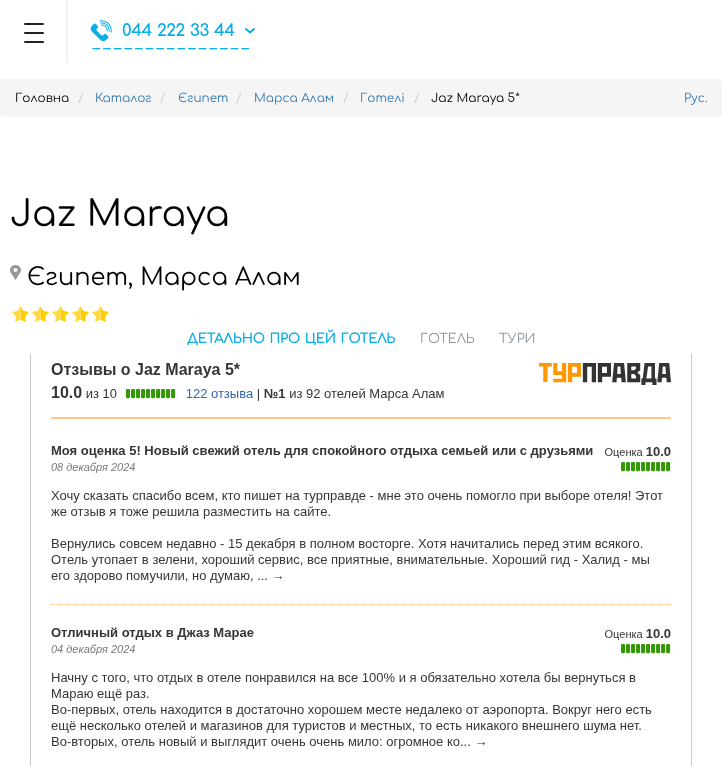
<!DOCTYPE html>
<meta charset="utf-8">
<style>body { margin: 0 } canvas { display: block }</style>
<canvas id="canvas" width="722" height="766"></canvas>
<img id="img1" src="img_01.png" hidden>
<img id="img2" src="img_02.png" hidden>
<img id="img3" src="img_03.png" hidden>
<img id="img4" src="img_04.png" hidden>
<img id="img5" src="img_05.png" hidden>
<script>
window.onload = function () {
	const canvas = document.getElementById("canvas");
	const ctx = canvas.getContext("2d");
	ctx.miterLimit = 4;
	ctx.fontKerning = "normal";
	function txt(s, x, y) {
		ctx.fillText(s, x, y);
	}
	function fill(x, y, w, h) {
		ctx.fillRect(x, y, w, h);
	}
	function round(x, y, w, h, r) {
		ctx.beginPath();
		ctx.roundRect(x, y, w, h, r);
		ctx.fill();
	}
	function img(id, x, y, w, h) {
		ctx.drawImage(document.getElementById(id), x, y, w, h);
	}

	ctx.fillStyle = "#FFFFFF";
	fill(0, 0, 722, 766);
	ctx.fillStyle = "#1F2123";
	round(24, 23, 20, 2, 1);
	ctx.fillStyle = "#EFEFEF";
	fill(66, 0, 2, 63);
	ctx.fillStyle = "#1F2123";
	round(24, 32, 20, 2, 1);
	round(24, 41, 20, 2, 1);
	img("img1", 90, 20, 22, 22);
	ctx.beginPath();
	ctx.moveTo(246, 29);
	ctx.lineTo(250, 32.5);
	ctx.lineTo(254, 29);
	ctx.strokeStyle = "#08AEEA";
	ctx.lineWidth = 2;
	ctx.lineCap = "round";
	ctx.stroke();
	img("img2", 92, 48, 158, 2);
	ctx.fillStyle = "#F5F5F5";
	round(0, 79, 722, 38, 4);
	img("img3", 10, 265, 11, 15);
	img("img4", 12, 306, 17, 16);
	img("img4", 32, 306, 17, 16);
	img("img4", 52, 306, 17, 16);
	img("img4", 72, 306, 17, 16);
	img("img4", 92, 306, 17, 16);
	img("img5", 30, 354, 662, 412);
	ctx.wordSpacing = "0.5px";
	ctx.font = "bold 16px Comfortaa";
	ctx.fillStyle = "#08AEEA";
	txt("044 222 33 44", 122, 36);
	ctx.wordSpacing = "0px";
	ctx.font = "12px Comfortaa";
	ctx.fillStyle = "#000000";
	txt("Головна", 15, 102);
	ctx.fillStyle = "#CCCCCC";
	txt("/", 78, 102);
	ctx.fillStyle = "#337AB7";
	txt("Каталог", 95, 102);
	ctx.fillStyle = "#CCCCCC";
	txt("/", 160, 102);
	ctx.fillStyle = "#337AB7";
	txt("Єгипет", 178, 102);
	ctx.fillStyle = "#CCCCCC";
	txt("/", 236, 102);
	ctx.fillStyle = "#337AB7";
	txt("Марса Алам", 254, 102);
	ctx.fillStyle = "#CCCCCC";
	txt("/", 343, 102);
	ctx.fillStyle = "#337AB7";
	txt("Готелі", 360, 102);
	ctx.fillStyle = "#CCCCCC";
	txt("/", 414, 102);
	ctx.fillStyle = "#000000";
	txt("Jaz Maraya 5*", 431, 102);
	ctx.fillStyle = "#337AB7";
	txt("Рус.", 684, 102);
	ctx.font = "36px Comfortaa";
	ctx.fillStyle = "#000000";
	txt("Jaz Maraya", 10, 226);
	ctx.font = "24px Comfortaa";
	txt("Єгипет, Марса Алам", 27, 285);
	ctx.wordSpacing = "1px";
	ctx.font = "bold 13px Comfortaa";
	ctx.fillStyle = "#08AEEA";
	txt("ДЕТАЛЬНО ПРО ЦЕЙ ГОТЕЛЬ", 187, 343);
	ctx.wordSpacing = "0px";
	ctx.font = "13px Comfortaa";
	ctx.fillStyle = "#8F959A";
	txt("ГОТЕЛЬ", 420, 343);
	txt("ТУРИ", 499, 343);
};
</script>
